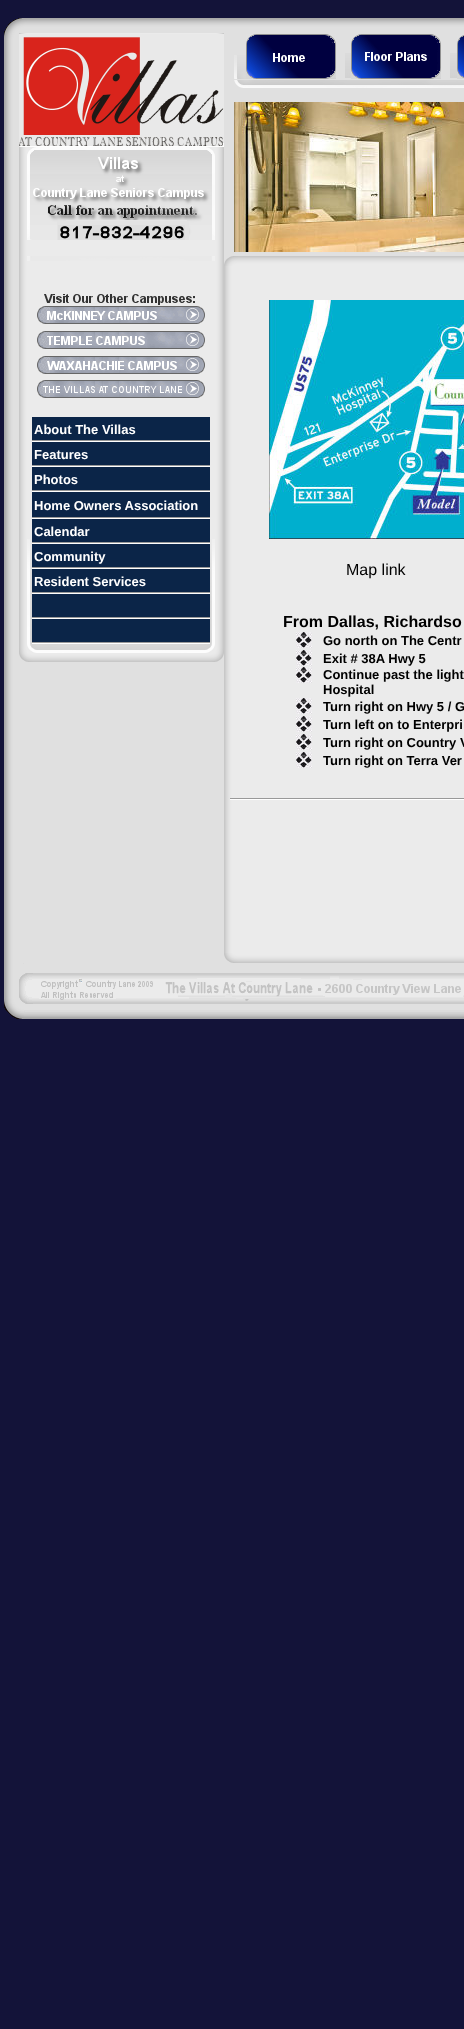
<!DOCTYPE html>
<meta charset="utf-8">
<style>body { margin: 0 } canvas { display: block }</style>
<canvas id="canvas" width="464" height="2029"></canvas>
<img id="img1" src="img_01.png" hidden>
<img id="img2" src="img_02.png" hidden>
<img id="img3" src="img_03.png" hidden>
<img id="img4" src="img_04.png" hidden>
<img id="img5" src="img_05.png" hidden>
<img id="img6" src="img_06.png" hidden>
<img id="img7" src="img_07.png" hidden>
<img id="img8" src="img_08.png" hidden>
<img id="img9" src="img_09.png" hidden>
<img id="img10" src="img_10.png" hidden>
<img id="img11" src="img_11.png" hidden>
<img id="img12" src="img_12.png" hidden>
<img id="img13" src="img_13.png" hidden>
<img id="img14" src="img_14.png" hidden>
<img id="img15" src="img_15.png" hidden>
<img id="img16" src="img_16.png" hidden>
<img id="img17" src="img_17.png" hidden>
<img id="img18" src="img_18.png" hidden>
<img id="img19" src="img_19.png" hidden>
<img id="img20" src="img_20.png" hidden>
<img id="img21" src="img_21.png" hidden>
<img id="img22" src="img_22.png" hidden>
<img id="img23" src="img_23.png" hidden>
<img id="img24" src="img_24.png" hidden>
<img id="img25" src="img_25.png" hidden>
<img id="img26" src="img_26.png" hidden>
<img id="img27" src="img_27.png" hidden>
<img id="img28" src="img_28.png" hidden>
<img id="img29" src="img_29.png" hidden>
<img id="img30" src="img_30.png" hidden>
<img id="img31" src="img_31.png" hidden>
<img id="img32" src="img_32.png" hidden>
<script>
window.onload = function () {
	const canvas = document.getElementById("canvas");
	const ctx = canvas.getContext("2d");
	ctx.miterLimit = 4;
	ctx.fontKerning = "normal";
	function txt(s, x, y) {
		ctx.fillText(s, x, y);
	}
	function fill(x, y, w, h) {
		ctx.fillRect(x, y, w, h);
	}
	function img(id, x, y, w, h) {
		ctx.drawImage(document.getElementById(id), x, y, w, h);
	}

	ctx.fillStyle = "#131339";
	fill(0, 0, 464, 2029);
	img("img1", 4, 18, 460, 238);
	img("img2", 19, 33, 205, 223);
	img("img3", 19, 34, 205, 113);
	img("img4", 27, 147, 188, 93);
	img("img5", 234, 55, 12, 24);
	img("img6", 246, 34, 90, 45);
	img("img7", 345, 53, 6, 25);
	img("img8", 351, 34, 90, 45);
	img("img9", 450, 53, 7, 25);
	img("img10", 457, 35, 7, 44);
	img("img11", 234, 80, 230, 8);
	img("img12", 234, 102, 230, 150);
	img("img13", 4, 256, 220, 707);
	img("img14", 224, 256, 240, 10);
	img("img15", 19, 256, 205, 283);
	img("img16", 27, 256, 188, 5);
	img("img17", 44, 294, 151, 11);
	img("img18", 37, 306, 168, 18);
	img("img19", 37, 331, 168, 18);
	img("img20", 37, 356, 168, 18);
	img("img21", 37, 380, 168, 18);
	img("img22", 19, 539, 205, 123);
	ctx.fillStyle = "#0B2548";
	fill(32, 417, 178, 23);
	img("img23", 32, 440, 178, 2);
	fill(32, 442, 178, 23);
	img("img23", 32, 465, 178, 2);
	fill(32, 467, 178, 23);
	img("img23", 32, 490, 178, 2);
	fill(32, 492, 178, 25);
	img("img23", 32, 517, 178, 2);
	fill(32, 519, 178, 23);
	img("img23", 32, 542, 178, 2);
	fill(32, 544, 178, 23);
	img("img23", 32, 567, 178, 2);
	fill(32, 569, 178, 23);
	img("img23", 32, 592, 178, 2);
	fill(32, 594, 178, 23);
	img("img23", 32, 617, 178, 2);
	fill(32, 619, 178, 23);
	img("img23", 32, 642, 178, 2);
	img("img24", 224, 266, 240, 521);
	img("img25", 269, 300, 195, 239);
	img("img26", 296, 632, 16, 16);
	img("img26", 296, 650, 16, 16);
	img("img26", 296, 667, 16, 16);
	img("img26", 296, 698, 16, 16);
	img("img26", 296, 716, 16, 16);
	img("img26", 296, 734, 16, 16);
	img("img26", 296, 752, 16, 16);
	img("img27", 224, 787, 240, 23);
	img("img28", 230, 798, 234, 2);
	img("img29", 224, 810, 240, 143);
	img("img30", 224, 953, 240, 10);
	img("img31", 4, 963, 20, 56);
	img("img32", 24, 963, 440, 56);
	ctx.font = "bold 13px Liberation Sans";
	ctx.fillStyle = "#FFFFFF";
	txt("About The Villas", 34, 434);
	txt("Features", 34, 459);
	txt("Photos", 34, 484);
	txt("Home Owners Association", 34, 510);
	txt("Calendar", 34, 536);
	txt("Community", 34, 561);
	txt("Resident Services", 34, 586);
	ctx.font = "16px Liberation Sans";
	ctx.fillStyle = "#000000";
	txt("Map link", 346, 575);
	ctx.font = "bold 16px Liberation Sans";
	txt("From Dallas, Richardso", 283, 627);
	ctx.font = "bold 13px Liberation Sans";
	txt("Go north on The Centr", 323, 645);
	txt("Exit # 38A Hwy 5", 323, 663);
	txt("Continue past the light", 323, 679);
	txt("Hospital", 323, 694);
	txt("Turn right on Hwy 5 / G", 323, 711);
	txt("Turn left on to Enterpri", 323, 729);
	txt("Turn right on Country V", 323, 747);
	txt("Turn right on Terra Ver", 323, 765);
};
</script>
